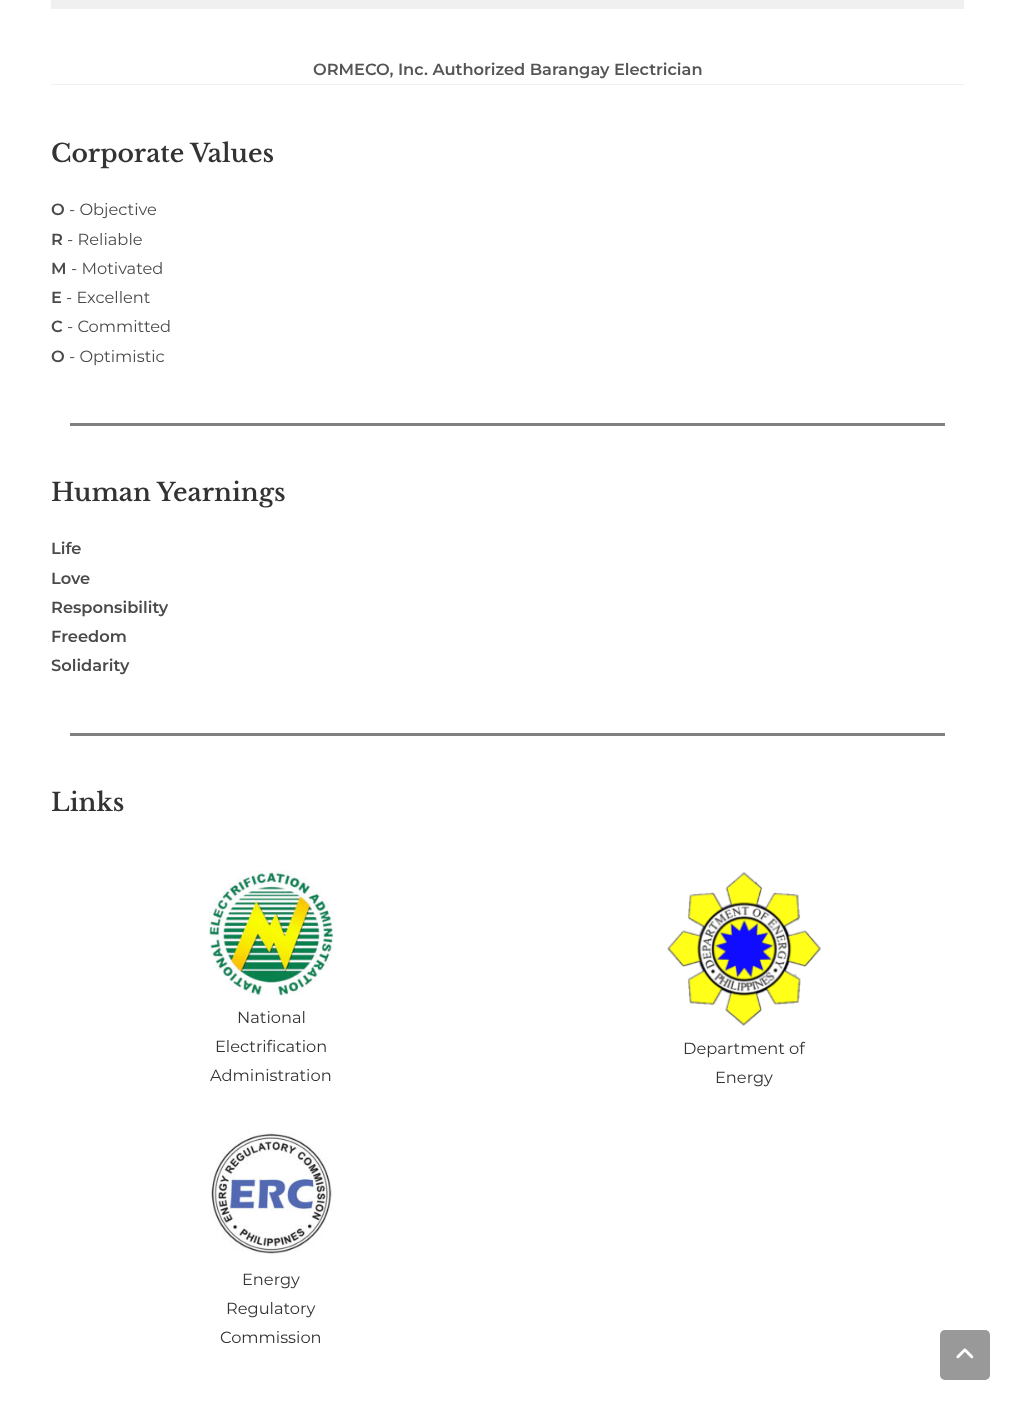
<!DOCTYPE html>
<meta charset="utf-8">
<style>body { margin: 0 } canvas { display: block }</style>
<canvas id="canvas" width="1015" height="1405"></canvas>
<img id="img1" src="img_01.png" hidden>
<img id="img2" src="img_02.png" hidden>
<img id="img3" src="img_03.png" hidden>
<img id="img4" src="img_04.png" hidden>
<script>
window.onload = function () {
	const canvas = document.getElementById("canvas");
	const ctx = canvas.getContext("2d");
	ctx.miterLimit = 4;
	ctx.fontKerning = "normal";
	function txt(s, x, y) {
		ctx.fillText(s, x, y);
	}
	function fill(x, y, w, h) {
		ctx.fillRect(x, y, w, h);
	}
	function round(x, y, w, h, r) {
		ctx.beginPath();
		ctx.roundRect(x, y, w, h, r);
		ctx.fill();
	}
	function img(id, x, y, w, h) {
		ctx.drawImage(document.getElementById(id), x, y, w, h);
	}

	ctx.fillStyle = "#FFFFFF";
	fill(0, 0, 1015, 1405);
	ctx.fillStyle = "#F0F0F0";
	fill(51, 84, 913, 1);
	fill(51, 0, 913, 9);
	ctx.fillStyle = "#808080";
	fill(70, 423, 875, 3);
	fill(70, 733, 875, 3);
	img("img1", 208, 870, 126, 126);
	img("img2", 210, 1132, 123, 123);
	img("img3", 667, 872, 154, 154);
	ctx.fillStyle = "#999999";
	round(940, 1330, 50, 50, 5);
	img("img4", 956, 1348, 18, 11);
	ctx.font = "600 16.25px Montserrat";
	ctx.fillStyle = "#555555";
	txt("ORMECO, Inc. Authorized Barangay Electrician", 313, 75);
	ctx.font = "600 25px Libre Baskerville";
	ctx.fillStyle = "#333333";
	txt("Corporate Values", 51, 162);
	ctx.font = "600 16.25px Montserrat";
	ctx.fillStyle = "#4A4A4A";
	txt("O", 51, 215);
	ctx.font = "16.25px Montserrat";
	txt("- Objective", 69, 215);
	ctx.font = "600 16.25px Montserrat";
	txt("R", 51, 245);
	ctx.font = "16.25px Montserrat";
	txt("- Reliable", 67, 245);
	ctx.font = "600 16.25px Montserrat";
	txt("M", 51, 274);
	ctx.font = "16.25px Montserrat";
	txt("- Motivated", 71, 274);
	ctx.font = "600 16.25px Montserrat";
	txt("E", 51, 303);
	ctx.font = "16.25px Montserrat";
	txt("- Excellent", 66, 303);
	ctx.font = "600 16.25px Montserrat";
	txt("C", 51, 332);
	ctx.font = "16.25px Montserrat";
	txt("- Committed", 67, 332);
	ctx.font = "600 16.25px Montserrat";
	txt("O", 51, 362);
	ctx.font = "16.25px Montserrat";
	txt("- Optimistic", 69, 362);
	ctx.font = "600 25px Libre Baskerville";
	ctx.fillStyle = "#333333";
	txt("Human Yearnings", 51, 501);
	ctx.font = "600 16.25px Montserrat";
	ctx.fillStyle = "#4A4A4A";
	txt("Life", 51, 554);
	txt("Love", 51, 584);
	txt("Responsibility", 51, 613);
	txt("Freedom", 51, 642);
	txt("Solidarity", 51, 671);
	ctx.font = "600 25px Libre Baskerville";
	ctx.fillStyle = "#333333";
	txt("Links", 51, 811);
	ctx.font = "16.25px Montserrat";
	txt("National", 237, 1023);
	txt("Electrification", 215, 1052);
	txt("Administration", 210, 1081);
	txt("Energy", 242, 1285);
	txt("Regulatory", 226, 1314);
	txt("Commission", 220, 1343);
	txt("Department of", 683, 1054);
	txt("Energy", 715, 1083);
};
</script>
